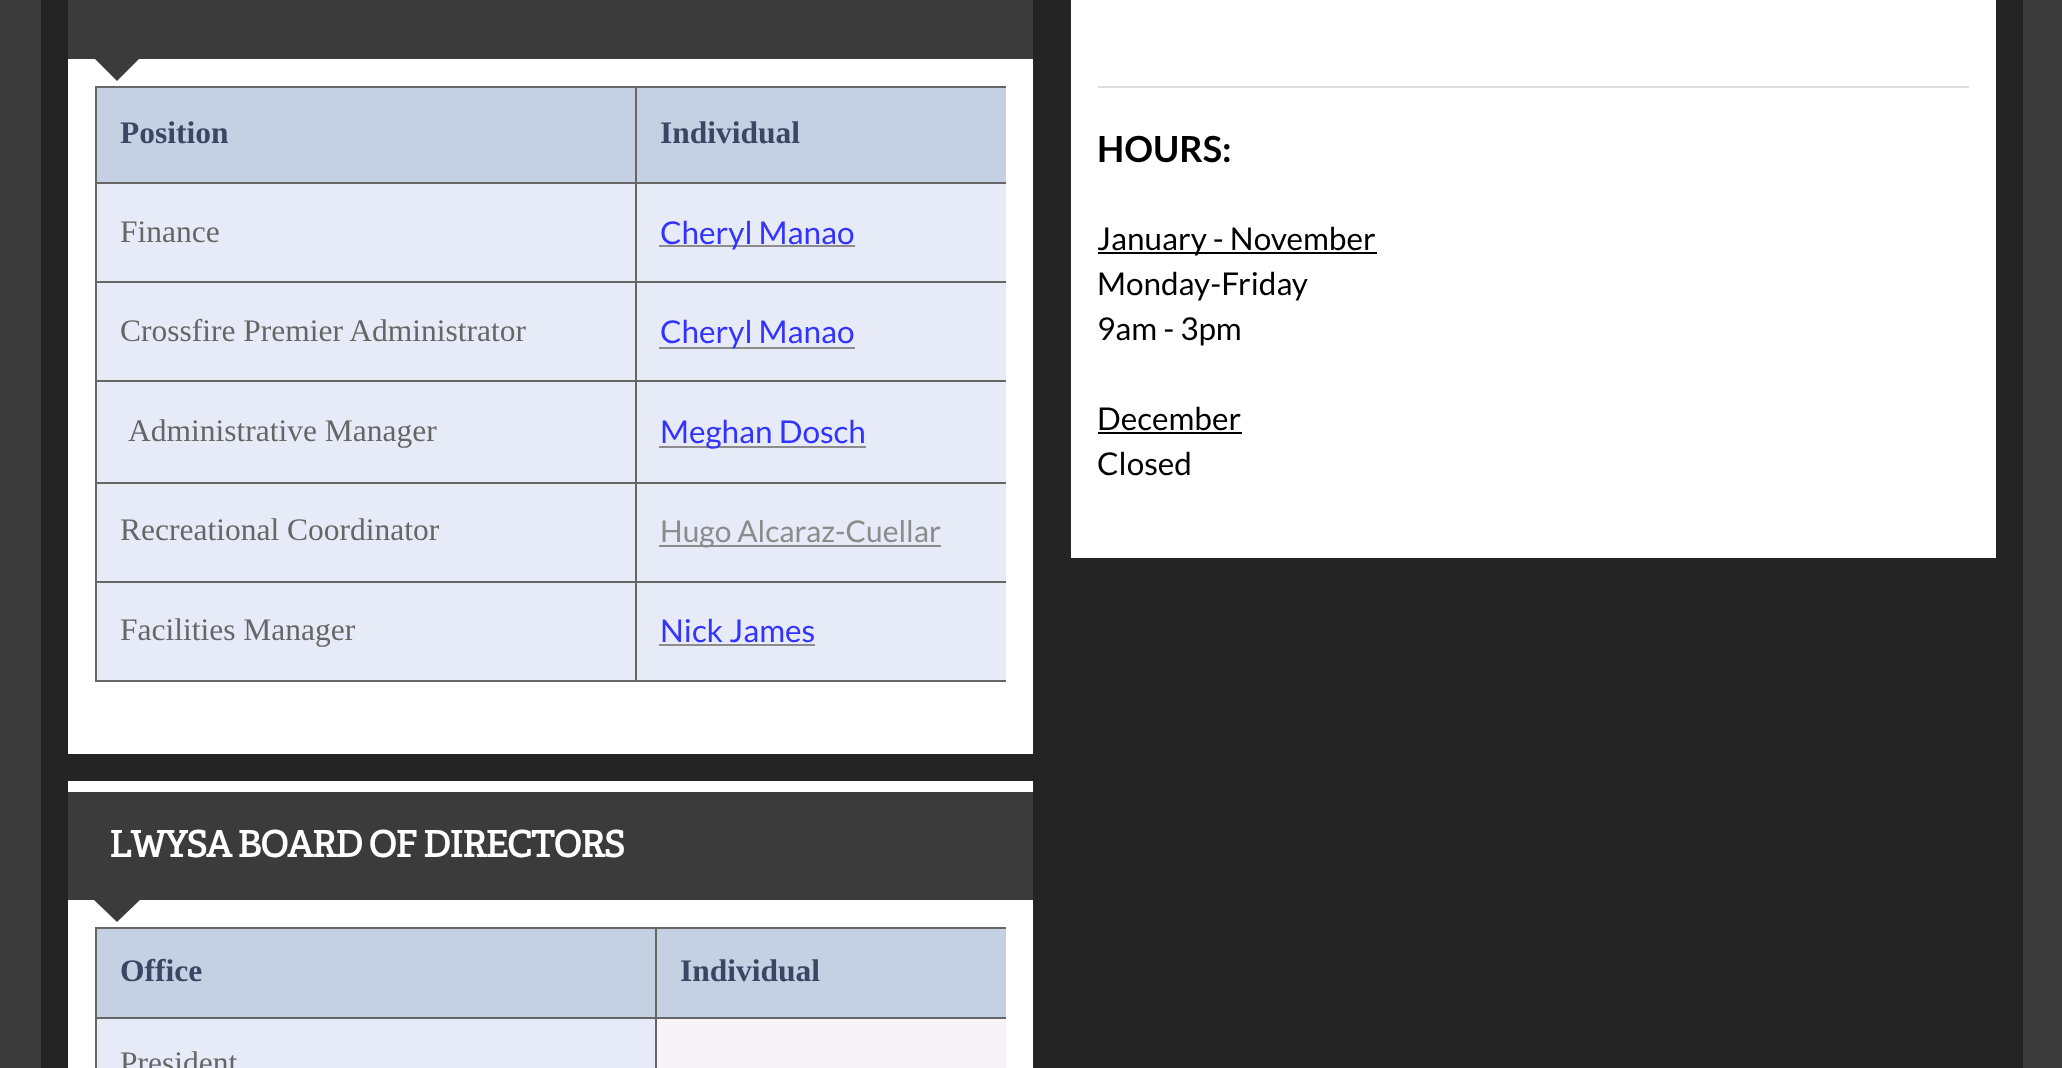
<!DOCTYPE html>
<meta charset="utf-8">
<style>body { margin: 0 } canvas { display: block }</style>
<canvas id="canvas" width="2062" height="1068"></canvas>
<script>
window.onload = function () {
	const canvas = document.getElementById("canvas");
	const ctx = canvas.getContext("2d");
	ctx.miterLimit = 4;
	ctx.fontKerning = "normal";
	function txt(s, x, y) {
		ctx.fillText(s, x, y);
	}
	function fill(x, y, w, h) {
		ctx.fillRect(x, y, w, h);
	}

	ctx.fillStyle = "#3B3B3B";
	fill(0, 0, 2062, 1068);
	ctx.fillStyle = "#242424";
	fill(41, 0, 1982, 1068);
	ctx.fillStyle = "#3B3B3B";
	fill(68, 0, 965, 59);
	ctx.fillStyle = "#FFFFFF";
	fill(68, 59, 965, 695);
	ctx.fillStyle = "#3B3B3B";
	ctx.beginPath();
	ctx.moveTo(94, 58);
	ctx.lineTo(140, 58);
	ctx.lineTo(117, 81);
	ctx.closePath();
	ctx.fill();
	ctx.fillStyle = "#666666";
	fill(95, 86, 911, 2);
	fill(95, 680, 911, 2);
	fill(95, 86, 2, 596);
	ctx.fillStyle = "#C4D1E3";
	fill(97, 88, 909, 94);
	ctx.fillStyle = "#666666";
	fill(635, 182, 371, 2);
	ctx.fillStyle = "#E7EBF7";
	fill(97, 184, 538, 298);
	fill(637, 184, 369, 298);
	ctx.fillStyle = "#666666";
	fill(635, 281, 371, 2);
	fill(635, 380, 371, 2);
	fill(635, 482, 371, 2);
	fill(635, 581, 371, 2);
	fill(635, 581, 2, 101);
	fill(95, 581, 542, 2);
	fill(635, 482, 2, 101);
	fill(95, 482, 542, 2);
	fill(635, 380, 2, 104);
	fill(95, 380, 542, 2);
	fill(635, 281, 2, 102);
	fill(95, 281, 542, 2);
	fill(635, 182, 2, 102);
	fill(95, 182, 542, 2);
	fill(635, 86, 2, 99);
	ctx.fillStyle = "#8C8C8C";
	fill(659, 245, 196, 2);
	fill(659, 347, 196, 2);
	fill(659, 446, 207, 2);
	ctx.fillStyle = "#E7EBF7";
	fill(97, 484, 538, 97);
	fill(637, 484, 369, 97);
	ctx.fillStyle = "#8C8C8C";
	fill(659, 545, 282, 2);
	ctx.fillStyle = "#E7EBF7";
	fill(97, 583, 538, 97);
	fill(637, 583, 369, 97);
	ctx.fillStyle = "#8C8C8C";
	fill(659, 644, 156, 2);
	ctx.fillStyle = "#3B3B3B";
	fill(68, 792, 965, 108);
	ctx.fillStyle = "#FFFFFF";
	fill(68, 781, 965, 11);
	fill(68, 900, 965, 168);
	ctx.fillStyle = "#3B3B3B";
	ctx.beginPath();
	ctx.moveTo(94, 900);
	ctx.lineTo(140, 900);
	ctx.lineTo(117, 922);
	ctx.closePath();
	ctx.fill();
	ctx.fillStyle = "#666666";
	fill(95, 927, 911, 2);
	fill(95, 927, 2, 141);
	ctx.fillStyle = "#C4D1E3";
	fill(97, 929, 909, 88);
	ctx.fillStyle = "#666666";
	fill(655, 1017, 351, 2);
	fill(655, 1017, 2, 51);
	fill(95, 1017, 562, 2);
	fill(655, 927, 2, 92);
	ctx.fillStyle = "#E7EBF7";
	fill(97, 1019, 558, 49);
	ctx.fillStyle = "#F7F3F7";
	fill(657, 1019, 349, 49);
	ctx.fillStyle = "#FFFFFF";
	fill(1071, 0, 925, 558);
	ctx.fillStyle = "#DDDDDD";
	fill(1098, 86, 871, 2);
	ctx.fillStyle = "#000000";
	fill(1098, 252, 279, 2);
	fill(1098, 432, 144, 2);
	ctx.font = "bold 31.5px Liberation Serif";
	ctx.fillStyle = "#3A4663";
	txt("Position", 120, 143);
	txt("Individual", 660, 143);
	ctx.font = "31.5px Liberation Serif";
	ctx.fillStyle = "#666666";
	txt("Finance", 120, 242);
	ctx.font = "31.5px Lato";
	ctx.fillStyle = "#3333FF";
	txt("Cheryl Manao", 660, 244);
	ctx.font = "31.5px Liberation Serif";
	ctx.fillStyle = "#666666";
	txt("Crossfire Premier Administrator", 120, 341);
	ctx.font = "31.5px Lato";
	ctx.fillStyle = "#3333FF";
	txt("Cheryl Manao", 660, 343);
	ctx.font = "31.5px Liberation Serif";
	ctx.fillStyle = "#666666";
	txt("Administrative Manager", 128, 441);
	ctx.font = "31.5px Lato";
	ctx.fillStyle = "#3333FF";
	txt("Meghan Dosch", 660, 443);
	ctx.font = "31.5px Liberation Serif";
	ctx.fillStyle = "#666666";
	txt("Recreational Coordinator", 120, 540);
	ctx.font = "30px Lato";
	ctx.fillStyle = "#8C8C8C";
	txt("Hugo Alcaraz-Cuellar", 660, 542);
	ctx.font = "31.5px Liberation Serif";
	ctx.fillStyle = "#666666";
	txt("Facilities Manager", 120, 640);
	ctx.font = "31.5px Lato";
	ctx.fillStyle = "#3333FF";
	txt("Nick James", 660, 642);
	ctx.letterSpacing = "-1.1px";
	ctx.font = "bold 36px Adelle";
	ctx.fillStyle = "#FFFFFF";
	txt("LWYSA BOARD OF DIRECTORS", 109, 857);
	ctx.letterSpacing = "0px";
	ctx.font = "bold 31.5px Liberation Serif";
	ctx.fillStyle = "#3A4663";
	txt("Office", 120, 981);
	txt("Individual", 680, 981);
	ctx.font = "31.5px Liberation Serif";
	ctx.fillStyle = "#666666";
	txt("President", 120, 1073);
	ctx.font = "bold 36px Lato";
	ctx.fillStyle = "#000000";
	txt("HOURS:", 1097, 162);
	ctx.font = "31.5px Lato";
	txt("January - November", 1097, 250);
	txt("Monday-Friday", 1097, 295);
	txt("9am - 3pm", 1097, 340);
	txt("December", 1097, 430);
	txt("Closed", 1097, 475);
};
</script>
